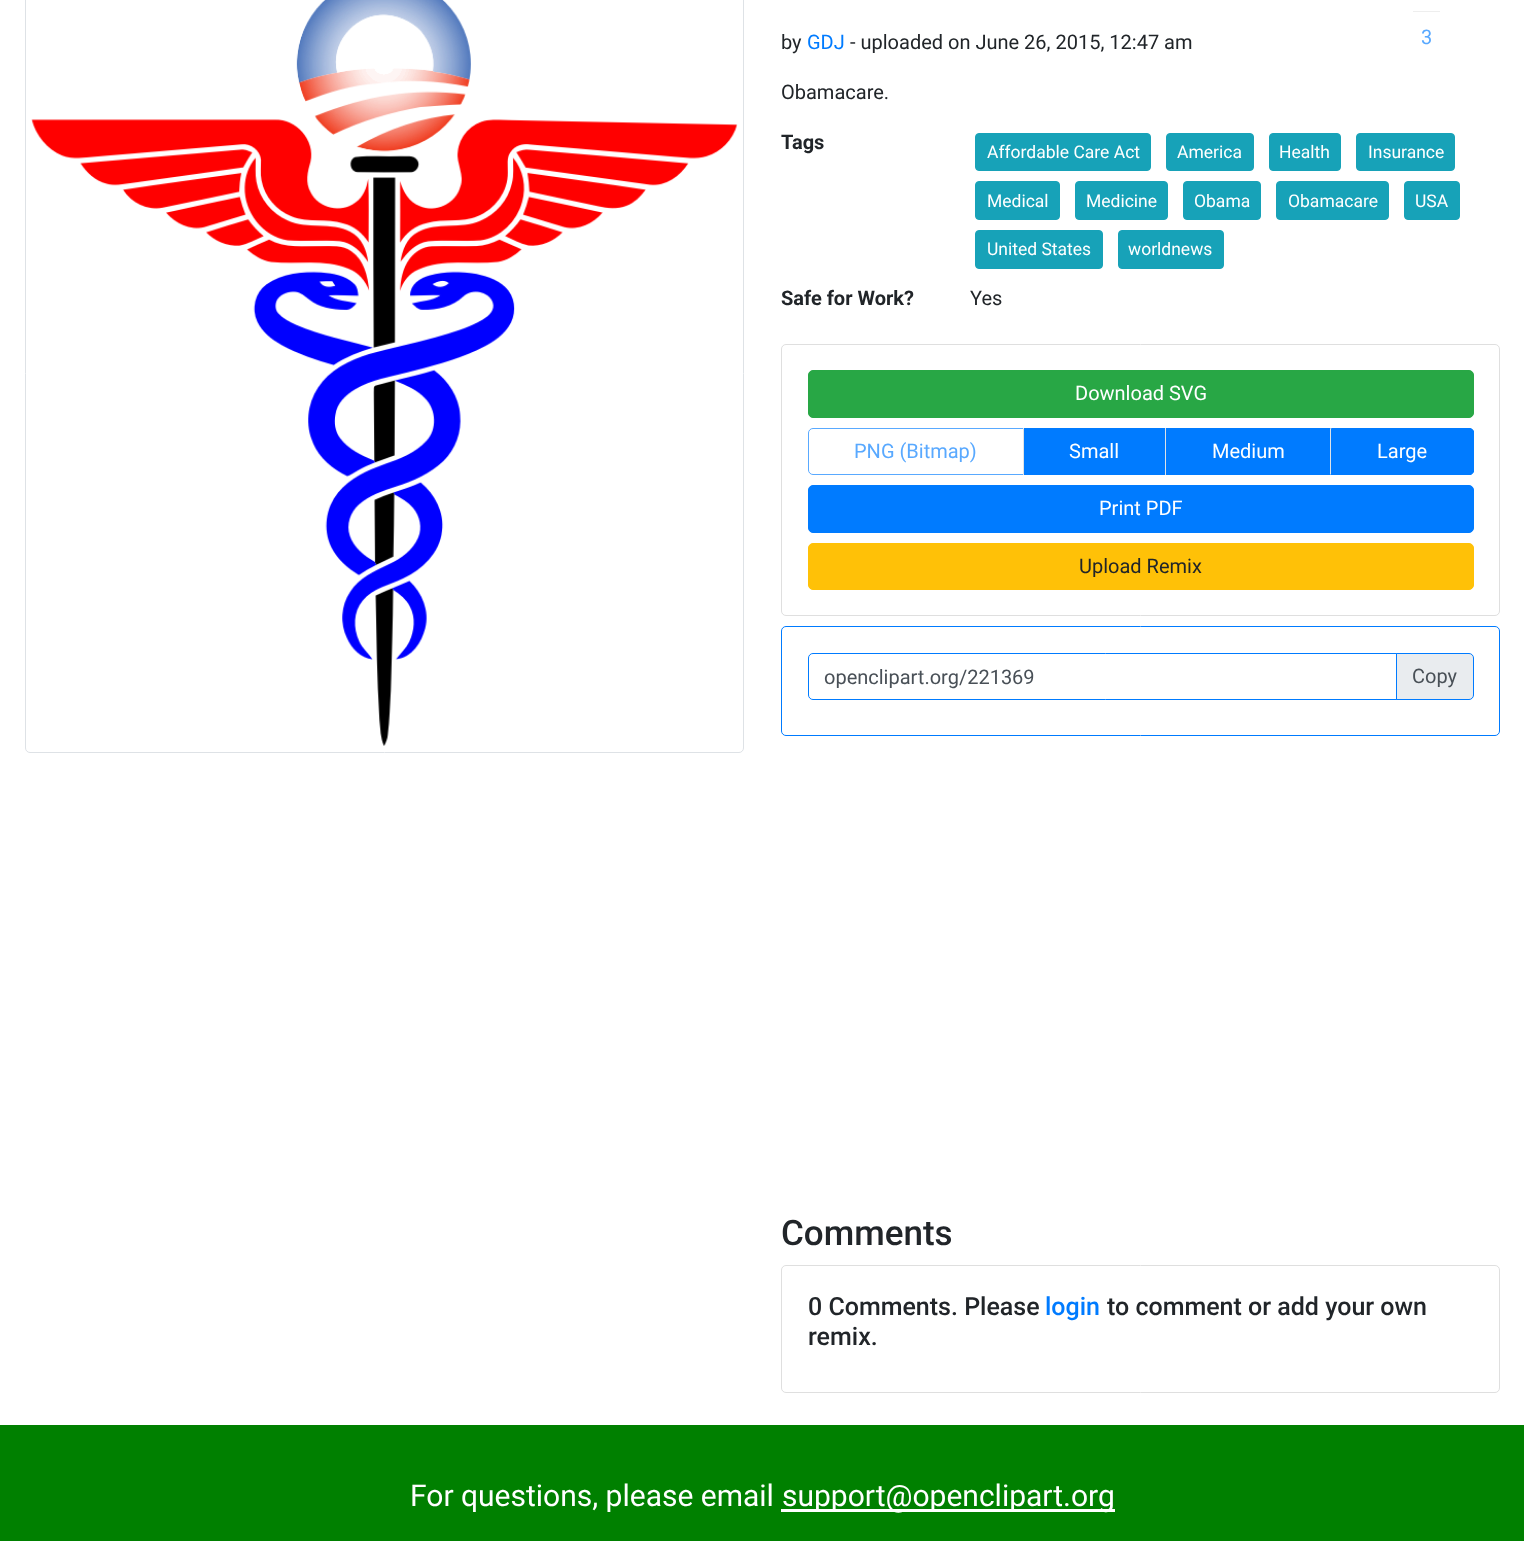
<!DOCTYPE html>
<meta charset="utf-8">
<style>body { margin: 0 } canvas { display: block }</style>
<canvas id="canvas" width="1524" height="1541"></canvas>
<img id="img1" src="img_01.png" hidden>
<script>
window.onload = function () {
	const canvas = document.getElementById("canvas");
	const ctx = canvas.getContext("2d");
	ctx.miterLimit = 4;
	ctx.fontKerning = "normal";
	function txt(s, x, y) {
		ctx.fillText(s, x, y);
	}
	function fill(x, y, w, h) {
		ctx.fillRect(x, y, w, h);
	}
	function img(id, x, y, w, h) {
		ctx.drawImage(document.getElementById(id), x, y, w, h);
	}

	ctx.fillStyle = "#FFFFFF";
	fill(0, 0, 1524, 1541);
	ctx.beginPath();
	ctx.roundRect(25.5, -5.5, 718, 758, 4.5);
	ctx.strokeStyle = "#DEE2E6";
	ctx.stroke();
	img("img1", 31, 0, 707, 746);
	ctx.fillStyle = "#EEEEEE";
	fill(1413, 11, 27, 1);
	ctx.fillStyle = "#17A2B8";
	ctx.beginPath();
	ctx.roundRect(975.5, 133.5, 175, 37, 3.5);
	ctx.fill();
	ctx.strokeStyle = "#17A2B8";
	ctx.stroke();
	ctx.beginPath();
	ctx.roundRect(1166.5, 133.5, 87, 37, 3.5);
	ctx.fill();
	ctx.stroke();
	ctx.beginPath();
	ctx.roundRect(1269.5, 133.5, 71, 37, 3.5);
	ctx.fill();
	ctx.stroke();
	ctx.beginPath();
	ctx.roundRect(1356.5, 133.5, 98, 37, 3.5);
	ctx.fill();
	ctx.stroke();
	ctx.beginPath();
	ctx.roundRect(975.5, 181.5, 84, 38, 3.5);
	ctx.fill();
	ctx.stroke();
	ctx.beginPath();
	ctx.roundRect(1075.5, 181.5, 92, 38, 3.5);
	ctx.fill();
	ctx.stroke();
	ctx.beginPath();
	ctx.roundRect(1183.5, 181.5, 77, 38, 3.5);
	ctx.fill();
	ctx.stroke();
	ctx.beginPath();
	ctx.roundRect(1276.5, 181.5, 112, 38, 3.5);
	ctx.fill();
	ctx.stroke();
	ctx.beginPath();
	ctx.roundRect(1404.5, 181.5, 55, 38, 3.5);
	ctx.fill();
	ctx.stroke();
	ctx.beginPath();
	ctx.roundRect(975.5, 230.5, 127, 38, 3.5);
	ctx.fill();
	ctx.stroke();
	ctx.beginPath();
	ctx.roundRect(1118.5, 230.5, 105, 38, 3.5);
	ctx.fill();
	ctx.stroke();
	ctx.beginPath();
	ctx.roundRect(781.5, 344.5, 718, 271, 4.5);
	ctx.strokeStyle = "#DFDFDF";
	ctx.stroke();
	ctx.fillStyle = "#28A745";
	ctx.beginPath();
	ctx.roundRect(808.5, 370.5, 665, 47, 4.5);
	ctx.fill();
	ctx.strokeStyle = "#28A745";
	ctx.stroke();
	ctx.beginPath();
	ctx.roundRect(808.5, 428.5, 215, 46, [4.5, 0, 0, 4.5]);
	ctx.strokeStyle = "#59A9FF";
	ctx.stroke();
	ctx.fillStyle = "#007BFF";
	fill(1024, 428, 141, 47);
	ctx.fillStyle = "#DEE2E6";
	fill(1023, 428, 1, 47);
	ctx.fillStyle = "#007BFF";
	fill(1166, 428, 164, 47);
	ctx.fillStyle = "#DEE2E6";
	fill(1165, 428, 1, 47);
	ctx.fillStyle = "#007BFF";
	ctx.beginPath();
	ctx.roundRect(1330, 428, 144, 47, [0, 5, 5, 0]);
	ctx.fill();
	ctx.beginPath();
	ctx.moveTo(1472, 429);
	ctx.bezierCurveTo(1471, 428, 1470, 428, 1469, 428);
	ctx.lineTo(1330, 428);
	ctx.lineTo(1332, 429);
	ctx.lineTo(1469, 429);
	ctx.lineTo(1471, 430);
	ctx.closePath();
	ctx.fill();
	ctx.beginPath();
	ctx.moveTo(1472, 429);
	ctx.lineTo(1474, 431);
	ctx.lineTo(1474, 472);
	ctx.lineTo(1472, 474);
	ctx.lineTo(1471, 473);
	ctx.bezierCurveTo(1473, 470, 1473, 431, 1471, 430);
	ctx.closePath();
	ctx.fill();
	ctx.beginPath();
	ctx.moveTo(1469, 475);
	ctx.bezierCurveTo(1470, 475, 1472, 475, 1472, 474);
	ctx.lineTo(1471, 473);
	ctx.bezierCurveTo(1471, 473, 1470, 474, 1469, 474);
	ctx.lineTo(1331, 474);
	ctx.lineTo(1330, 475);
	ctx.closePath();
	ctx.fill();
	ctx.fillStyle = "#DEE2E6";
	ctx.beginPath();
	ctx.moveTo(1331, 429);
	ctx.lineTo(1332, 429);
	ctx.lineTo(1330, 428);
	ctx.lineTo(1330, 475);
	ctx.lineTo(1331, 474);
	ctx.closePath();
	ctx.fill();
	ctx.fillStyle = "#007BFF";
	ctx.beginPath();
	ctx.roundRect(808.5, 485.5, 665, 47, 4.5);
	ctx.fill();
	ctx.strokeStyle = "#007BFF";
	ctx.stroke();
	ctx.fillStyle = "#FFC107";
	ctx.beginPath();
	ctx.roundRect(808.5, 543.5, 665, 46, 4.5);
	ctx.fill();
	ctx.strokeStyle = "#FFC107";
	ctx.stroke();
	ctx.beginPath();
	ctx.roundRect(781.5, 626.5, 718, 109, 4.5);
	ctx.strokeStyle = "#007BFF";
	ctx.stroke();
	ctx.beginPath();
	ctx.roundRect(808.5, 653.5, 589, 46, [4.5, 0, 0, 4.5]);
	ctx.stroke();
	ctx.fillStyle = "#E9ECEF";
	ctx.beginPath();
	ctx.roundRect(1396.5, 653.5, 77, 46, [0, 4.5, 4.5, 0]);
	ctx.fill();
	ctx.stroke();
	ctx.beginPath();
	ctx.roundRect(781.5, 1265.5, 718, 127, 4.5);
	ctx.strokeStyle = "#DFDFDF";
	ctx.stroke();
	ctx.fillStyle = "#008000";
	fill(0, 1425, 1524, 116);
	ctx.fillStyle = "#FFFFFF";
	fill(781, 1509, 334, 3);
	ctx.font = "20px Roboto";
	ctx.fillStyle = "#212529";
	txt("by", 781, 49);
	ctx.fillStyle = "#007BFF";
	txt("GDJ", 807, 49);
	ctx.fillStyle = "#212529";
	txt("- uploaded on June 26, 2015, 12:47 am", 850, 49);
	txt("Obamacare.", 781, 99);
	ctx.fillStyle = "#59A9FF";
	txt("3", 1421, 44);
	ctx.font = "bold 20px Roboto";
	ctx.fillStyle = "#212529";
	txt("Tags", 781, 149);
	ctx.font = "17.5px Roboto";
	ctx.fillStyle = "#FFFFFF";
	txt("Affordable Care Act", 987, 158);
	txt("America", 1177, 158);
	txt("Health", 1279, 158);
	txt("Insurance", 1368, 158);
	txt("Medical", 987, 207);
	txt("Medicine", 1086, 207);
	txt("Obama", 1194, 207);
	txt("Obamacare", 1288, 207);
	txt("USA", 1415, 207);
	txt("United States", 987, 255);
	txt("worldnews", 1128, 255);
	ctx.font = "bold 20px Roboto";
	ctx.fillStyle = "#212529";
	txt("Safe for Work?", 781, 305);
	ctx.font = "20px Roboto";
	txt("Yes", 970, 305);
	ctx.fillStyle = "#FFFFFF";
	txt("Download SVG", 1075, 400);
	ctx.fillStyle = "#59A9FF";
	txt("PNG (Bitmap)", 854, 458);
	ctx.fillStyle = "#FFFFFF";
	txt("Small", 1069, 458);
	txt("Medium", 1212, 458);
	txt("Large", 1377, 458);
	txt("Print PDF", 1099, 515);
	ctx.fillStyle = "#212529";
	txt("Upload Remix", 1079, 573);
	ctx.fillStyle = "#495057";
	txt("openclipart.org/221369", 824, 684);
	txt("Copy", 1412, 683);
	ctx.font = "500 35px Roboto";
	ctx.fillStyle = "#212529";
	txt("Comments", 781, 1245);
	ctx.font = "500 25px Roboto";
	txt("0 Comments. Please", 808, 1315);
	ctx.fillStyle = "#007BFF";
	txt("login", 1045, 1315);
	ctx.fillStyle = "#212529";
	txt("to comment or add your own", 1107, 1315);
	txt("remix.", 808, 1345);
	ctx.font = "30px Roboto";
	ctx.fillStyle = "#FFFFFF";
	txt("For questions, please email", 410, 1506);
	txt("support@openclipart.org", 782, 1506);
};
</script>
